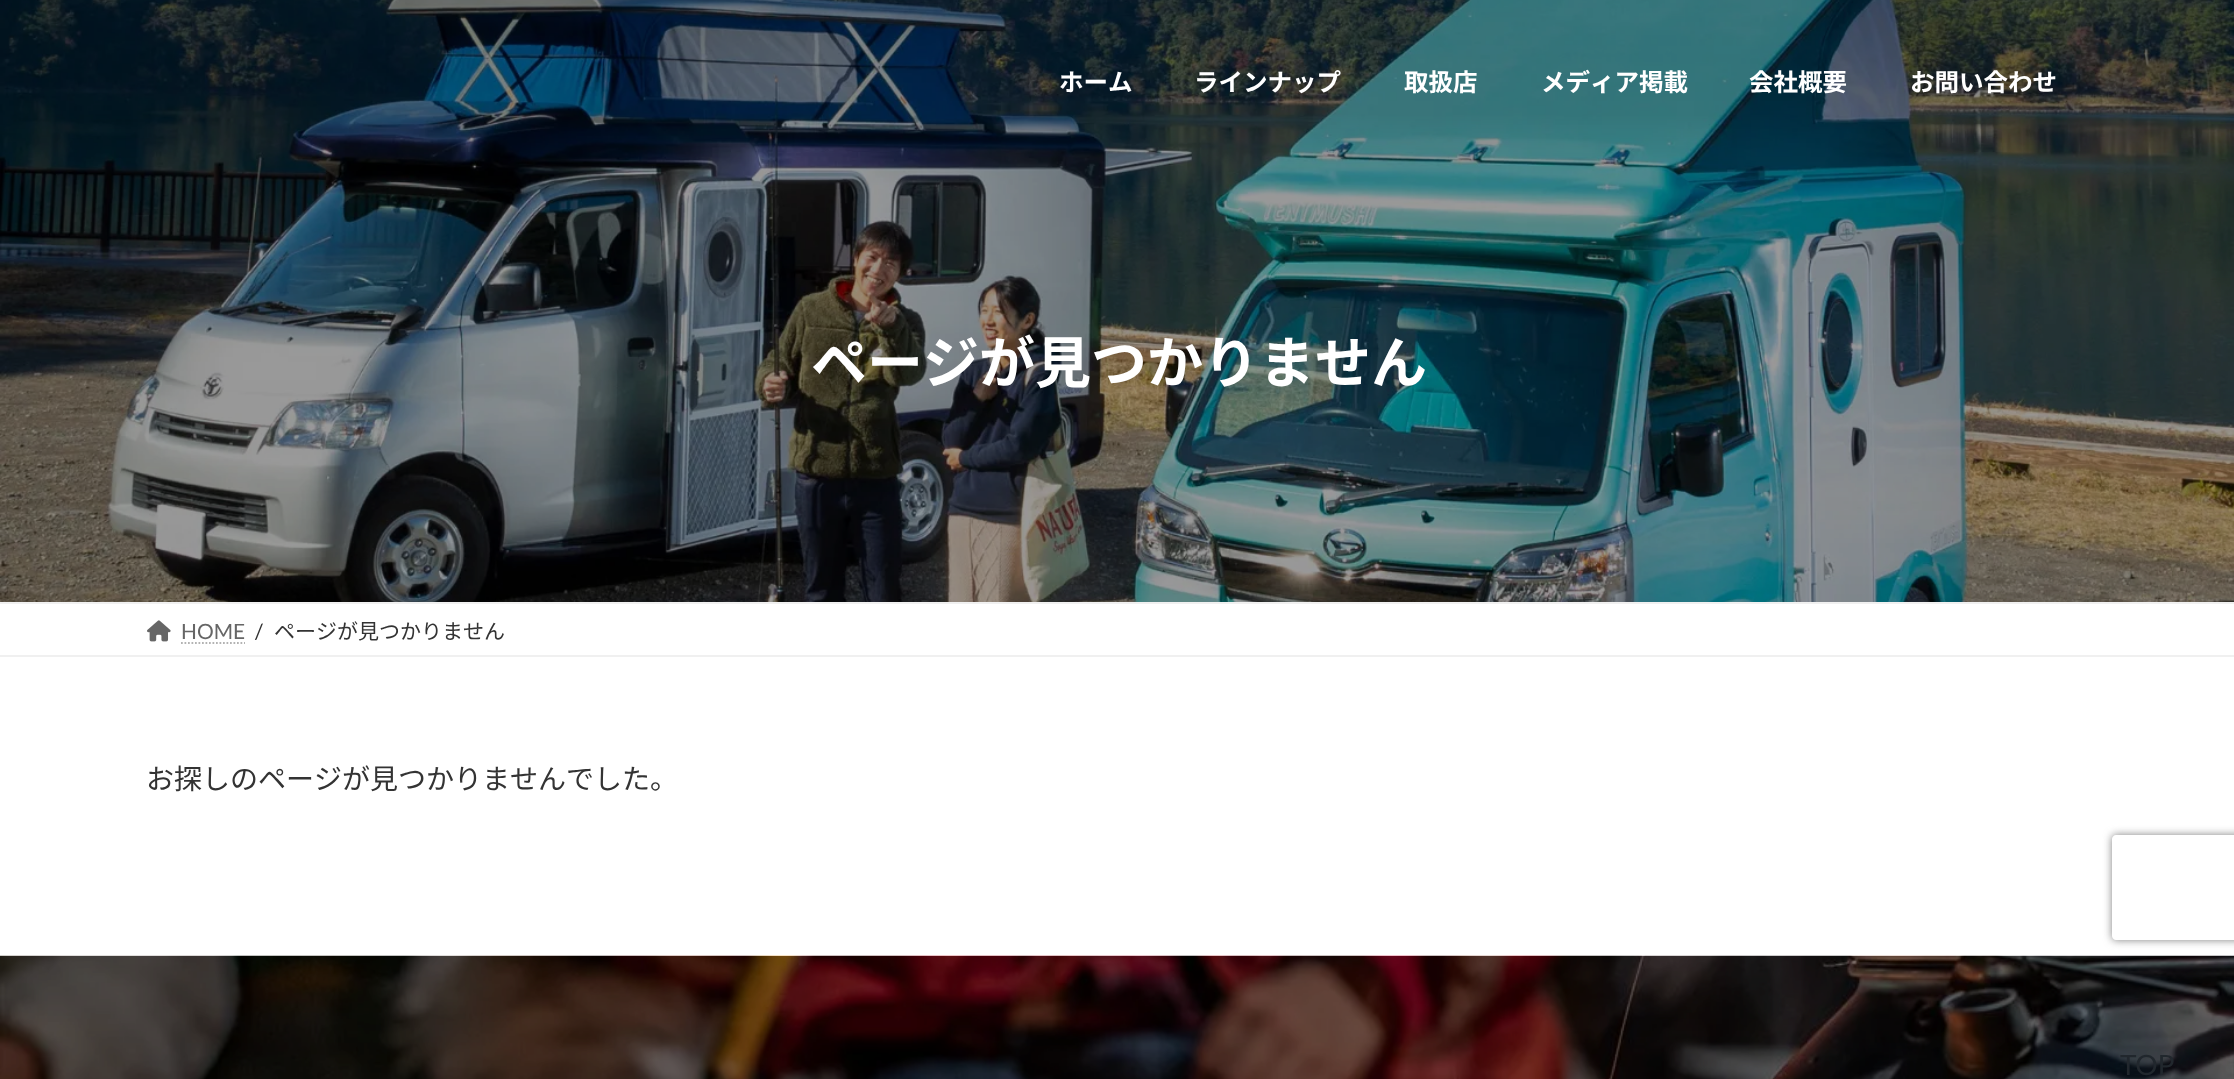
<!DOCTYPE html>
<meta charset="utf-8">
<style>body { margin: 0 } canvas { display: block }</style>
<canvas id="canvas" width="2234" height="1079"></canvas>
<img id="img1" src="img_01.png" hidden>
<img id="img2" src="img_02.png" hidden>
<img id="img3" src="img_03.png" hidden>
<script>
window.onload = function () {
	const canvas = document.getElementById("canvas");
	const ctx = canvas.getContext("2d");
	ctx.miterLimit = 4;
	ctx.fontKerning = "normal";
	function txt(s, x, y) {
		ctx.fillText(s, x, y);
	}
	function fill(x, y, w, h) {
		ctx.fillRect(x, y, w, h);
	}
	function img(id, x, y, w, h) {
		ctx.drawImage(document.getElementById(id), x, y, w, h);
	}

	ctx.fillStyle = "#FFFFFF";
	fill(0, 0, 2234, 1079);
	img("img1", 0, 0, 2234, 602);
	ctx.fillStyle = "#F0F0F0";
	fill(0, 602, 2234, 2);
	fill(0, 655, 2234, 2);
	img("img2", 147, 620, 24, 22);
	ctx.beginPath();
	ctx.moveTo(181, 643);
	ctx.lineTo(245, 643);
	ctx.strokeStyle = "#B3B3B3";
	ctx.lineWidth = 1.8;
	ctx.setLineDash([1.75, 1.75]);
	ctx.stroke();
	ctx.save();
	ctx.beginPath();
	ctx.moveTo(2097, 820);
	ctx.lineTo(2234, 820);
	ctx.lineTo(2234, 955);
	ctx.lineTo(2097, 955);
	ctx.closePath();
	ctx.moveTo(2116, 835);
	ctx.lineTo(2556, 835);
	ctx.bezierCurveTo(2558, 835, 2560, 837, 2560, 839);
	ctx.lineTo(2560, 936);
	ctx.bezierCurveTo(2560, 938, 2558, 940, 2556, 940);
	ctx.lineTo(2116, 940);
	ctx.bezierCurveTo(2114, 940, 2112, 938, 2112, 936);
	ctx.lineTo(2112, 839);
	ctx.bezierCurveTo(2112, 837, 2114, 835, 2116, 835);
	ctx.closePath();
	ctx.clip("evenodd");
	ctx.fillStyle = "#808080";
	ctx.filter = "blur(4.5px)";
	ctx.beginPath();
	ctx.roundRect(2112, 835, 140, 105, 4);
	ctx.fill();
	ctx.filter = "none";
	ctx.restore();
	img("img3", 0, 955, 2234, 124);
	ctx.font = "bold 24.5px Noto Sans JP";
	ctx.fillStyle = "#FFFFFF";
	txt("ホーム", 1059, 91);
	txt("ラインナップ", 1194, 91);
	txt("取扱店", 1404, 91);
	txt("メディア掲載", 1541, 91);
	txt("会社概要", 1749, 91);
	txt("お問い合わせ", 1910, 91);
	ctx.font = "bold 56px Noto Sans JP";
	txt("ページが見つかりません", 811, 383);
	ctx.font = "21px Lato";
	ctx.fillStyle = "#666666";
	txt("HOME", 181, 639);
	ctx.fillStyle = "#333333";
	txt("/", 255, 639);
	ctx.font = "21px Noto Sans JP";
	txt("ページが見つかりません", 274, 639);
	ctx.font = "28px Noto Sans JP";
	txt("お探しのページが見つかりませんでした。", 146, 789);
	ctx.font = "28px Lato";
	ctx.fillStyle = "#21272D";
	txt("TOP", 2120, 1075);
};
</script>
